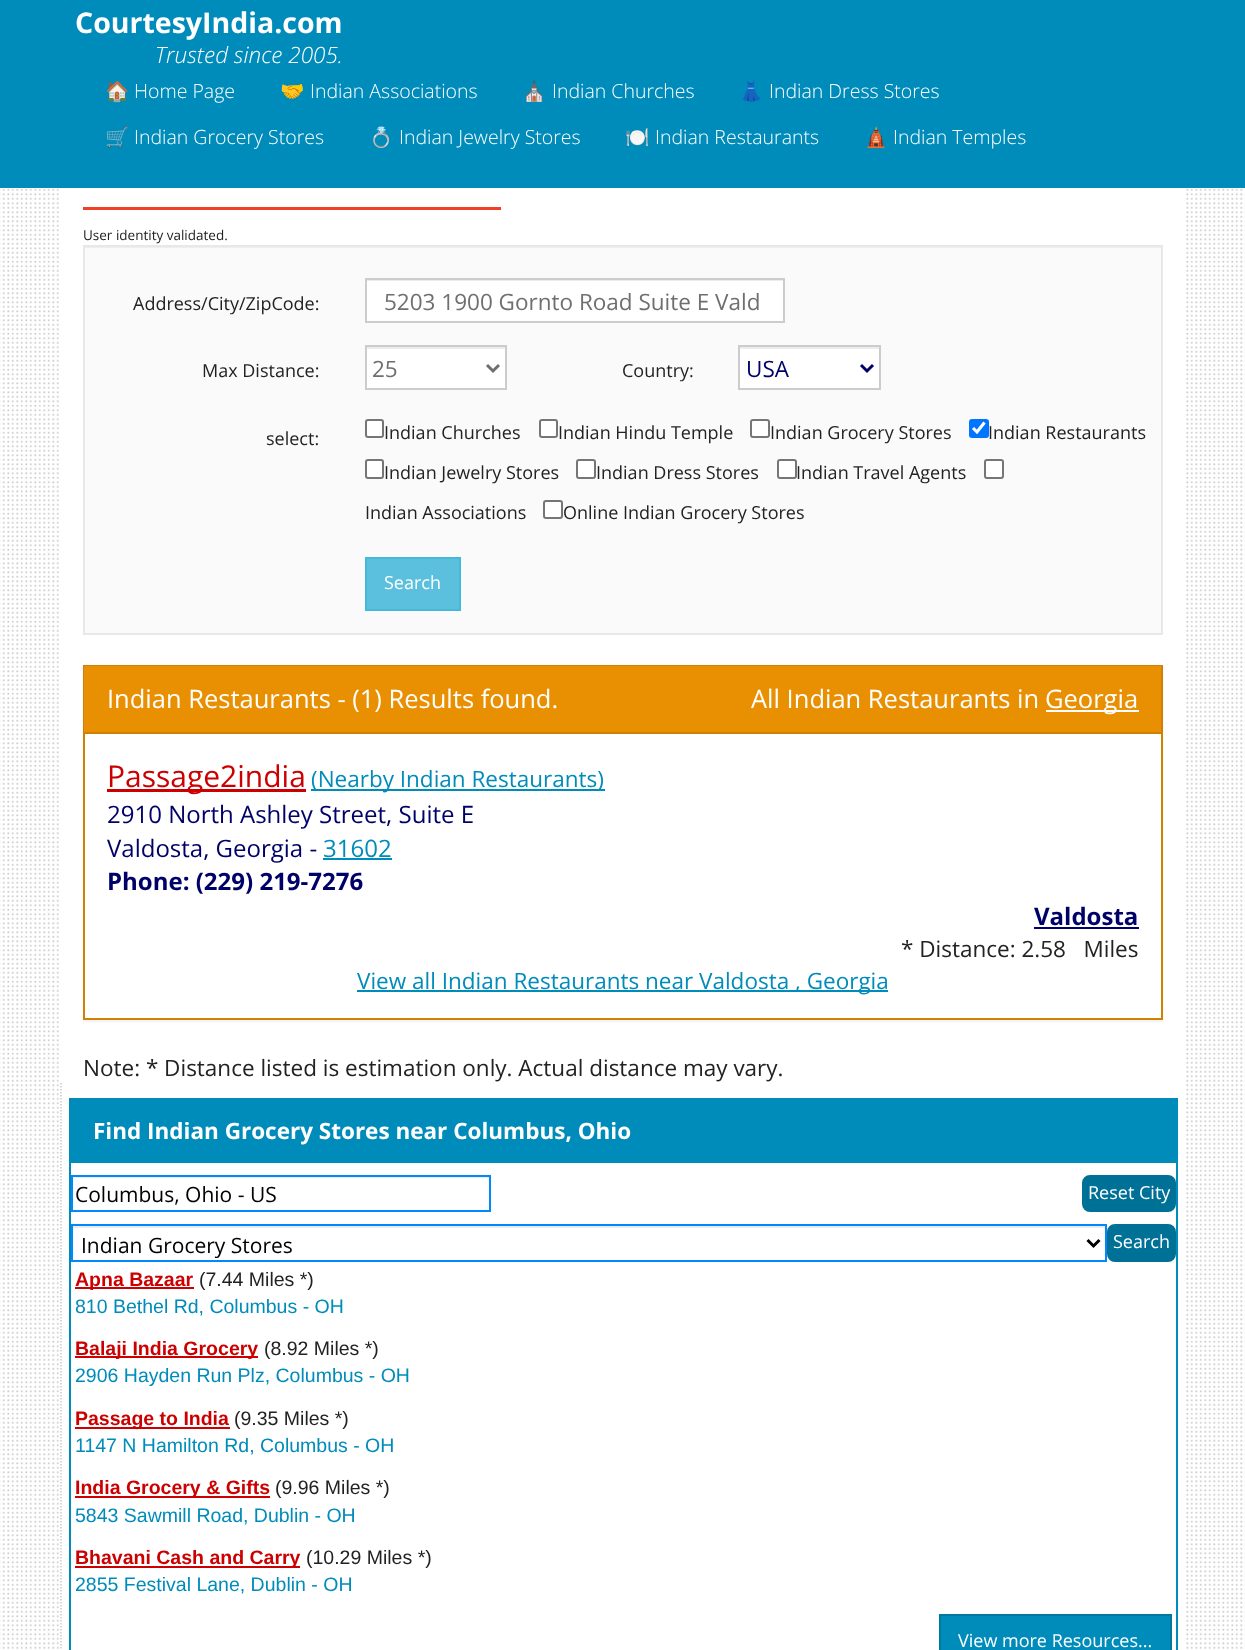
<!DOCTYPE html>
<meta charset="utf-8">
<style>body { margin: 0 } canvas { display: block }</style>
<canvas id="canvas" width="1245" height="1650"></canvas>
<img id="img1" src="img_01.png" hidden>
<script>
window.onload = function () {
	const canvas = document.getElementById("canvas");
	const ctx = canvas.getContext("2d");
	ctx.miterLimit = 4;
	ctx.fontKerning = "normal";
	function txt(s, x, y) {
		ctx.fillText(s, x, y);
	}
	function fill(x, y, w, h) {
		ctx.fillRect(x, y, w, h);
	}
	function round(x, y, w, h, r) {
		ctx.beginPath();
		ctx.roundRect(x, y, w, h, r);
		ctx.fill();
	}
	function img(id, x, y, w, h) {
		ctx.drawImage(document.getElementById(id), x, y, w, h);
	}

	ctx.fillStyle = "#FFFFFF";
	fill(0, 0, 1245, 1650);
	img("img1", 0, 188, 1245, 1461);
	ctx.fillStyle = "#008CBA";
	fill(0, 0, 1245, 188);
	ctx.fillStyle = "#FFFFFF";
	fill(60, 188, 1124, 1461);
	ctx.fillStyle = "#F04124";
	fill(83, 207, 418, 3);
	ctx.fillStyle = "#FAFAFA";
	fill(85, 248, 1076, 385);
	ctx.fillStyle = "#EEEEEE";
	fill(84, 247, 1077, 1);
	ctx.strokeStyle = "#E8E8E8";
	ctx.lineWidth = 2;
	ctx.strokeRect(84, 246, 1078, 388);
	ctx.fillStyle = "#FFFFFF";
	fill(367, 281, 416, 40);
	ctx.fillStyle = "#ECECEC";
	fill(366, 280, 417, 1);
	ctx.strokeStyle = "#CCCCCC";
	ctx.strokeRect(366, 279, 418, 43);
	ctx.fillStyle = "#FFFFFF";
	fill(367, 349, 138, 39);
	ctx.fillStyle = "#ECECEC";
	fill(366, 347, 140, 2);
	ctx.strokeRect(366, 346, 140, 43);
	ctx.beginPath();
	ctx.moveTo(487, 365);
	ctx.lineTo(493, 371);
	ctx.lineTo(499, 365);
	ctx.strokeStyle = "#6F6F6F";
	ctx.lineWidth = 3;
	ctx.stroke();
	ctx.fillStyle = "#FFFFFF";
	fill(740, 349, 139, 39);
	ctx.fillStyle = "#ECECEC";
	fill(740, 347, 139, 2);
	ctx.strokeStyle = "#CCCCCC";
	ctx.lineWidth = 2;
	ctx.strokeRect(739, 346, 141, 43);
	ctx.beginPath();
	ctx.moveTo(861, 365);
	ctx.lineTo(867, 371);
	ctx.lineTo(873, 365);
	ctx.strokeStyle = "#000069";
	ctx.lineWidth = 3;
	ctx.stroke();
	ctx.fillStyle = "#FFFFFF";
	ctx.beginPath();
	ctx.roundRect(366, 420, 17, 17, 2);
	ctx.fill();
	ctx.strokeStyle = "#767676";
	ctx.lineWidth = 2;
	ctx.stroke();
	ctx.beginPath();
	ctx.roundRect(540, 420, 17, 17, 2);
	ctx.fill();
	ctx.stroke();
	ctx.beginPath();
	ctx.roundRect(751, 420, 18, 17, 2);
	ctx.fill();
	ctx.stroke();
	ctx.fillStyle = "#0075FF";
	round(969, 419, 20, 19, 3);
	ctx.beginPath();
	ctx.moveTo(973, 428);
	ctx.lineTo(977, 432);
	ctx.lineTo(984.5, 422.5);
	ctx.strokeStyle = "#FFFFFF";
	ctx.lineWidth = 3.1;
	ctx.stroke();
	ctx.fillStyle = "#FFFFFF";
	ctx.beginPath();
	ctx.roundRect(366, 460, 17, 18, 2);
	ctx.fill();
	ctx.strokeStyle = "#767676";
	ctx.lineWidth = 2;
	ctx.stroke();
	ctx.beginPath();
	ctx.roundRect(577, 460, 18, 18, 2);
	ctx.fill();
	ctx.stroke();
	ctx.beginPath();
	ctx.roundRect(778, 460, 18, 18, 2);
	ctx.fill();
	ctx.stroke();
	ctx.beginPath();
	ctx.roundRect(985, 460, 18, 18, 2);
	ctx.fill();
	ctx.stroke();
	ctx.beginPath();
	ctx.roundRect(544, 501, 18, 17, 2);
	ctx.fill();
	ctx.stroke();
	ctx.fillStyle = "#5BC0DE";
	ctx.beginPath();
	ctx.rect(366, 558, 94, 52);
	ctx.fill();
	ctx.strokeStyle = "#46B8DA";
	ctx.stroke();
	ctx.fillStyle = "rgba(0, 0, 0, 0.05)";
	ctx.filter = "blur(1px)";
	ctx.beginPath();
	ctx.rect(83, 666, 1080, 356);
	ctx.fill();
	ctx.filter = "none";
	ctx.fillStyle = "#FFFFFF";
	fill(85, 734, 1076, 284);
	ctx.strokeStyle = "#D08002";
	ctx.strokeRect(84, 666, 1078, 353);
	ctx.fillStyle = "#E99002";
	fill(84, 666, 1077, 66);
	ctx.fillStyle = "#D08002";
	fill(84, 732, 1077, 2);
	ctx.fillStyle = "#FFFFFF";
	fill(1046, 710, 93, 2);
	ctx.fillStyle = "#CC0000";
	fill(107, 789, 199, 3);
	ctx.fillStyle = "#008CBA";
	fill(311, 789, 294, 2);
	fill(323, 858, 69, 2);
	ctx.fillStyle = "#000069";
	fill(1034, 927, 105, 2);
	ctx.fillStyle = "#008CBA";
	fill(357, 990, 531, 2);
	ctx.beginPath();
	ctx.moveTo(61, 1083);
	ctx.lineTo(61, 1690.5);
	ctx.strokeStyle = "#CCCCCC";
	ctx.lineWidth = 1.5;
	ctx.setLineDash([1.5, 1.5]);
	ctx.stroke();
	ctx.strokeStyle = "#008CBA";
	ctx.lineWidth = 2;
	ctx.setLineDash([]);
	ctx.strokeRect(70, 1099, 1107, 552);
	fill(71, 1100, 1105, 63);
	ctx.fillStyle = "#ECECEC";
	fill(72, 1177, 417, 1);
	ctx.strokeStyle = "#0088FF";
	ctx.strokeRect(72, 1176, 418, 35);
	ctx.fillStyle = "#007196";
	ctx.beginPath();
	ctx.roundRect(1083.5, 1176.5, 91, 34, 6.5);
	ctx.fill();
	ctx.strokeStyle = "#007196";
	ctx.lineWidth = 3;
	ctx.stroke();
	ctx.fillStyle = "#ECECEC";
	fill(72, 1226, 1034, 2);
	ctx.strokeStyle = "#0088FF";
	ctx.lineWidth = 2;
	ctx.strokeRect(72, 1225, 1034, 36);
	ctx.beginPath();
	ctx.moveTo(1087.5, 1240);
	ctx.lineTo(1093.5, 1246);
	ctx.lineTo(1099.5, 1240);
	ctx.strokeStyle = "#000000";
	ctx.lineWidth = 3;
	ctx.stroke();
	ctx.fillStyle = "#007196";
	ctx.beginPath();
	ctx.roundRect(1108.5, 1225.5, 66, 35, 6.5);
	ctx.fill();
	ctx.strokeStyle = "#007196";
	ctx.stroke();
	ctx.fillStyle = "#CC0000";
	fill(75, 1287, 119, 2);
	fill(75, 1356, 183, 2);
	fill(75, 1427, 155, 2);
	fill(75, 1496, 195, 2);
	fill(75, 1566, 225, 2);
	ctx.fillStyle = "#008CBA";
	ctx.beginPath();
	ctx.rect(940, 1615, 231, 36);
	ctx.fill();
	ctx.strokeStyle = "#0079A1";
	ctx.lineWidth = 2;
	ctx.stroke();
	ctx.font = "bold 28.5px Open Sans";
	ctx.fillStyle = "#FFFFFF";
	txt("CourtesyIndia.com", 75, 33);
	ctx.font = "italic 300 22.5px Open Sans";
	txt("Trusted since 2005.", 155, 63);
	ctx.font = "19.5px Noto Color Emoji";
	txt("🏠", 105, 98);
	ctx.font = "300 19.5px Open Sans";
	txt("Home Page", 134, 98);
	ctx.font = "19.5px Noto Color Emoji";
	txt("🤝", 280, 98);
	ctx.font = "300 19.5px Open Sans";
	txt("Indian Associations", 310, 98);
	ctx.font = "19.5px Noto Color Emoji";
	txt("⛪", 522, 98);
	ctx.font = "300 19.5px Open Sans";
	txt("Indian Churches", 552, 98);
	ctx.font = "19.5px Noto Color Emoji";
	txt("👗", 739, 98);
	ctx.font = "300 19.5px Open Sans";
	txt("Indian Dress Stores", 769, 98);
	ctx.font = "19.5px Noto Color Emoji";
	txt("🛒", 105, 144);
	ctx.font = "300 19.5px Open Sans";
	txt("Indian Grocery Stores", 134, 144);
	ctx.font = "19.5px Noto Color Emoji";
	txt("💍", 369, 144);
	ctx.font = "300 19.5px Open Sans";
	txt("Indian Jewelry Stores", 399, 144);
	ctx.font = "19.5px Noto Color Emoji";
	txt("🍽️", 625, 144);
	ctx.font = "300 19.5px Open Sans";
	txt("Indian Restaurants", 655, 144);
	ctx.font = "19.5px Noto Color Emoji";
	txt("🛕", 864, 144);
	ctx.font = "300 19.5px Open Sans";
	txt("Indian Temples", 893, 144);
	ctx.font = "13.5px Open Sans";
	ctx.fillStyle = "#222222";
	txt("User identity validated.", 83, 240);
	ctx.font = "18px Open Sans";
	txt("Address/City/ZipCode:", 133, 310);
	ctx.font = "22.5px Open Sans";
	ctx.fillStyle = "#6F6F6F";
	txt("5203 1900 Gornto Road Suite E Vald", 384, 310);
	ctx.font = "18px Open Sans";
	ctx.fillStyle = "#222222";
	txt("Max Distance:", 202, 377);
	ctx.font = "22.5px Open Sans";
	ctx.fillStyle = "#6F6F6F";
	txt("25", 372, 377);
	ctx.font = "18px Open Sans";
	ctx.fillStyle = "#222222";
	txt("Country:", 622, 377);
	ctx.font = "22.5px Open Sans";
	ctx.fillStyle = "#000069";
	txt("USA", 746, 377);
	ctx.font = "18px Open Sans";
	ctx.fillStyle = "#222222";
	txt("select:", 266, 445);
	txt("Indian Churches", 384, 439);
	txt("Indian Hindu Temple", 558, 439);
	txt("Indian Grocery Stores", 770, 439);
	txt("Indian Restaurants", 988, 439);
	txt("Indian Jewelry Stores", 384, 479);
	txt("Indian Dress Stores", 596, 479);
	txt("Indian Travel Agents", 796, 479);
	txt("Indian Associations", 365, 519);
	txt("Online Indian Grocery Stores", 563, 519);
	ctx.fillStyle = "#FFFFFF";
	txt("Search", 384, 589);
	ctx.font = "25.5px Open Sans";
	txt("Indian Restaurants - (1) Results found.", 107, 708);
	txt("All Indian Restaurants in", 751, 708);
	txt("Georgia", 1045, 708);
	ctx.font = "30px Open Sans";
	ctx.fillStyle = "#CC0000";
	txt("Passage2india", 107, 787);
	ctx.font = "22.5px Open Sans";
	ctx.fillStyle = "#008CBA";
	txt("(Nearby Indian Restaurants)", 311, 787);
	ctx.font = "24px Open Sans";
	ctx.fillStyle = "#000069";
	txt("2910 North Ashley Street, Suite E", 107, 823);
	txt("Valdosta, Georgia -", 107, 857);
	ctx.fillStyle = "#008CBA";
	txt("31602", 323, 857);
	ctx.font = "bold 24px Open Sans";
	ctx.fillStyle = "#000069";
	txt("Phone: (229) 219-7276", 107, 890);
	txt("Valdosta", 1034, 925);
	ctx.font = "22.5px Open Sans";
	ctx.fillStyle = "#222222";
	txt("* Distance: 2.58   Miles", 901, 957);
	ctx.fillStyle = "#008CBA";
	txt("View all Indian Restaurants near Valdosta , Georgia", 357, 989);
	ctx.fillStyle = "#222222";
	txt("Note: * Distance listed is estimation only. Actual distance may vary.", 83, 1076);
	ctx.font = "bold 22.5px Open Sans";
	ctx.fillStyle = "#FFFFFF";
	txt("Find Indian Grocery Stores near Columbus, Ohio", 93, 1139);
	ctx.font = "21px Open Sans";
	ctx.fillStyle = "#000000";
	txt("Columbus, Ohio - US", 75, 1202);
	ctx.font = "18px Open Sans";
	ctx.fillStyle = "#FFFFFF";
	txt("Reset City", 1088, 1199);
	ctx.font = "21px Open Sans";
	ctx.fillStyle = "#000000";
	txt("Indian Grocery Stores", 81, 1253);
	ctx.font = "18px Open Sans";
	ctx.fillStyle = "#FFFFFF";
	txt("Search", 1113, 1248);
	ctx.font = "bold 19.5px Liberation Sans";
	ctx.fillStyle = "#CC0000";
	txt("Apna Bazaar", 75, 1286);
	ctx.font = "19.5px Liberation Sans";
	ctx.fillStyle = "#222222";
	txt("(7.44 Miles *)", 199, 1286);
	ctx.fillStyle = "#008CBA";
	txt("810 Bethel Rd, Columbus - OH", 75, 1313);
	ctx.font = "bold 19.5px Liberation Sans";
	ctx.fillStyle = "#CC0000";
	txt("Balaji India Grocery", 75, 1355);
	ctx.font = "19.5px Liberation Sans";
	ctx.fillStyle = "#222222";
	txt("(8.92 Miles *)", 264, 1355);
	ctx.fillStyle = "#008CBA";
	txt("2906 Hayden Run Plz, Columbus - OH", 75, 1382);
	ctx.font = "bold 19.5px Liberation Sans";
	ctx.fillStyle = "#CC0000";
	txt("Passage to India", 75, 1425);
	ctx.font = "19.5px Liberation Sans";
	ctx.fillStyle = "#222222";
	txt("(9.35 Miles *)", 234, 1425);
	ctx.fillStyle = "#008CBA";
	txt("1147 N Hamilton Rd, Columbus - OH", 75, 1452);
	ctx.font = "bold 19.5px Liberation Sans";
	ctx.fillStyle = "#CC0000";
	txt("India Grocery & Gifts", 75, 1494);
	ctx.font = "19.5px Liberation Sans";
	ctx.fillStyle = "#222222";
	txt("(9.96 Miles *)", 275, 1494);
	ctx.fillStyle = "#008CBA";
	txt("5843 Sawmill Road, Dublin - OH", 75, 1522);
	ctx.font = "bold 19.5px Liberation Sans";
	ctx.fillStyle = "#CC0000";
	txt("Bhavani Cash and Carry", 75, 1564);
	ctx.font = "19.5px Liberation Sans";
	ctx.fillStyle = "#222222";
	txt("(10.29 Miles *)", 306, 1564);
	ctx.fillStyle = "#008CBA";
	txt("2855 Festival Lane, Dublin - OH", 75, 1591);
	ctx.font = "18px Open Sans";
	ctx.fillStyle = "#FFFFFF";
	txt("View more Resources...", 958, 1647);
};
</script>
